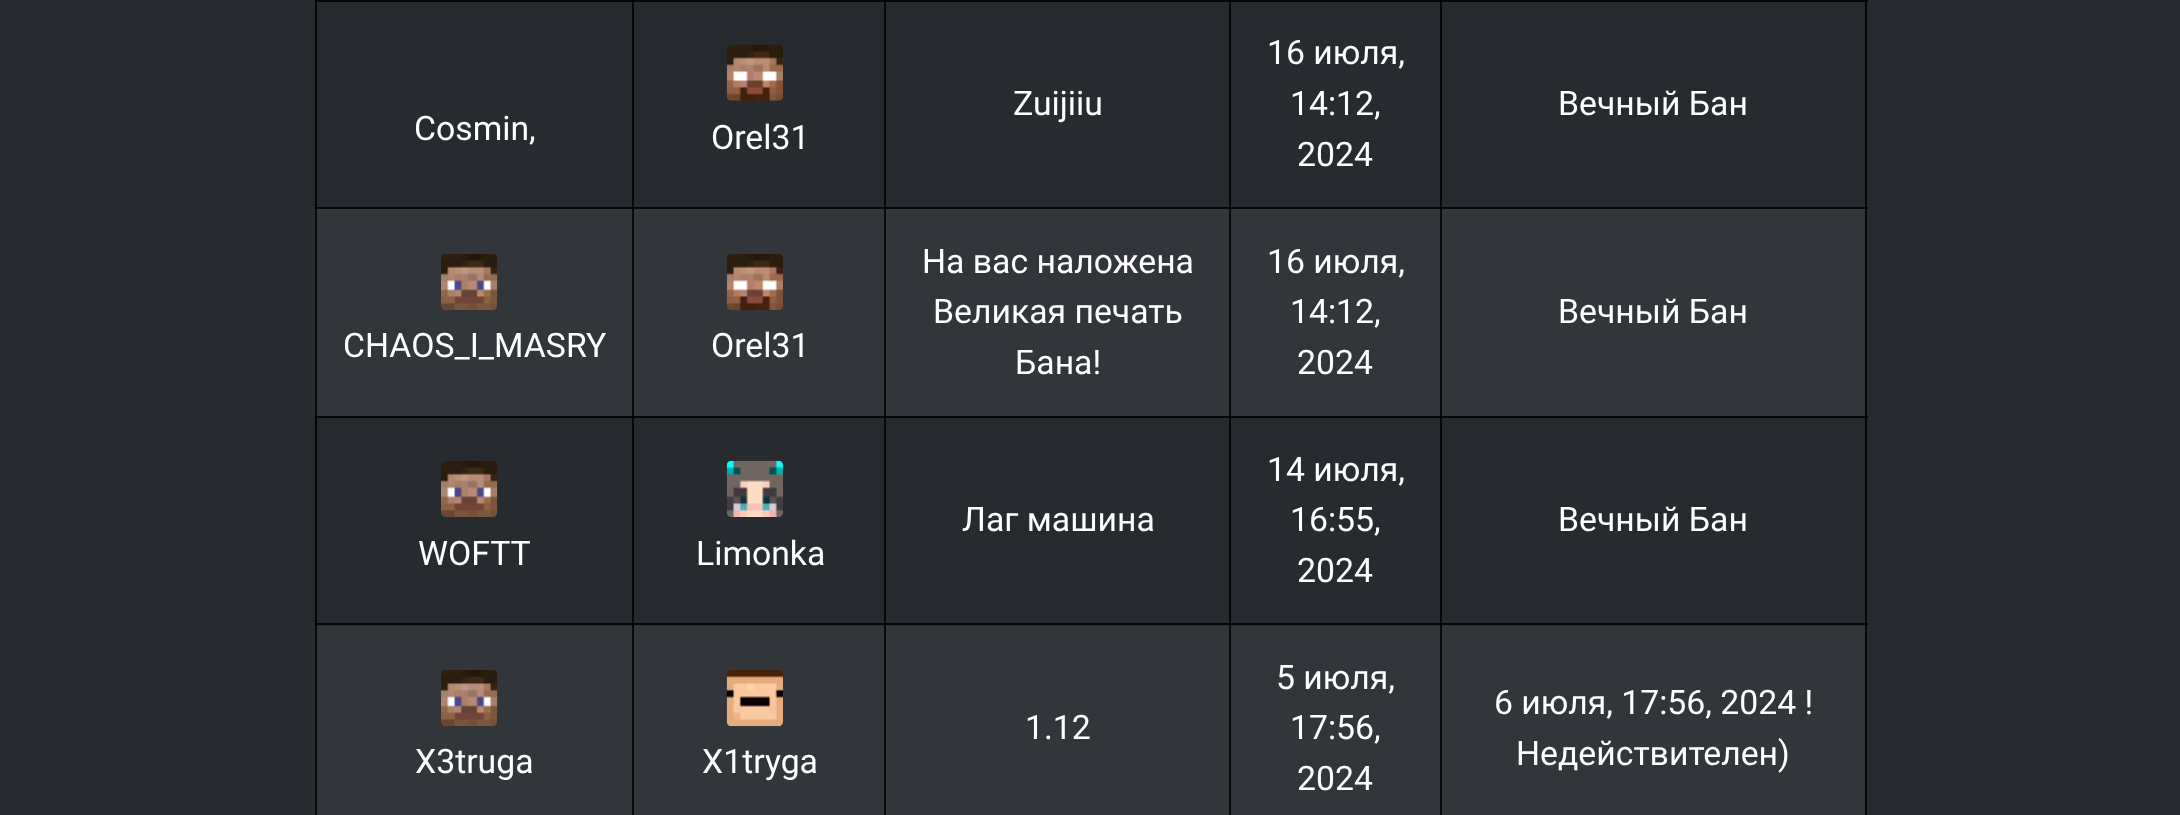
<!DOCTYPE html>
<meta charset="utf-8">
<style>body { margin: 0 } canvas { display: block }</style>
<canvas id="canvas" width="2180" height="815"></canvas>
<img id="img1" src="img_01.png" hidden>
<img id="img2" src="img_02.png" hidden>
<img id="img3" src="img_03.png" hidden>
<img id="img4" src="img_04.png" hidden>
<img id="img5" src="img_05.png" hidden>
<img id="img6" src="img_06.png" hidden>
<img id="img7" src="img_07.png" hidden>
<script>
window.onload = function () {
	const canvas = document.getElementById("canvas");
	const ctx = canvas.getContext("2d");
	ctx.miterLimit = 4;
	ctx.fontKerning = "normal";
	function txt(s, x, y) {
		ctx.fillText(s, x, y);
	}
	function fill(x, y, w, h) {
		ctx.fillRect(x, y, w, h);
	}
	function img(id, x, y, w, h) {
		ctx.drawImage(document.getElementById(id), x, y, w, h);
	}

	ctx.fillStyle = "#272B30";
	fill(0, 0, 2180, 815);
	ctx.fillStyle = "#060708";
	fill(315, 0, 320, 2);
	fill(632, 0, 2, 209);
	fill(632, 0, 255, 2);
	ctx.fillStyle = "#010101";
	fill(632, 0, 3, 2);
	ctx.fillStyle = "#060708";
	fill(884, 0, 2, 209);
	fill(884, 0, 347, 2);
	ctx.fillStyle = "#010101";
	fill(884, 0, 3, 2);
	ctx.fillStyle = "#060708";
	fill(1229, 0, 2, 209);
	fill(1229, 0, 213, 2);
	ctx.fillStyle = "#000000";
	fill(1229, 0, 2, 2);
	ctx.fillStyle = "#060708";
	fill(1440, 0, 2, 209);
	fill(1440, 0, 428, 2);
	ctx.fillStyle = "#000000";
	fill(1440, 0, 2, 2);
	ctx.fillStyle = "#060708";
	fill(315, 207, 1553, 2);
	ctx.fillStyle = "#010101";
	fill(632, 207, 3, 2);
	fill(884, 207, 3, 2);
	ctx.fillStyle = "#000000";
	fill(1229, 207, 2, 2);
	fill(1440, 207, 2, 2);
	ctx.fillStyle = "#060708";
	fill(315, 416, 320, 2);
	fill(632, 416, 2, 210);
	ctx.fillStyle = "#010101";
	fill(632, 416, 2, 3);
	ctx.fillStyle = "#060708";
	fill(632, 416, 255, 2);
	ctx.fillStyle = "#010101";
	fill(632, 416, 3, 2);
	ctx.fillStyle = "#060708";
	fill(884, 416, 2, 210);
	ctx.fillStyle = "#010101";
	fill(884, 416, 2, 3);
	ctx.fillStyle = "#060708";
	fill(884, 416, 347, 2);
	ctx.fillStyle = "#010101";
	fill(884, 416, 3, 2);
	ctx.fillStyle = "#060708";
	fill(1229, 416, 2, 210);
	ctx.fillStyle = "#010101";
	fill(1229, 416, 2, 3);
	ctx.fillStyle = "#060708";
	fill(1229, 416, 213, 2);
	ctx.fillStyle = "#000000";
	fill(1229, 416, 2, 2);
	ctx.fillStyle = "#060708";
	fill(1440, 416, 2, 210);
	ctx.fillStyle = "#010101";
	fill(1440, 416, 2, 3);
	ctx.fillStyle = "#060708";
	fill(1440, 416, 428, 2);
	ctx.fillStyle = "#000000";
	fill(1440, 416, 2, 2);
	ctx.fillStyle = "#060708";
	fill(315, 623, 320, 2);
	ctx.fillStyle = "#010101";
	fill(632, 623, 2, 3);
	ctx.fillStyle = "#060708";
	fill(632, 623, 255, 2);
	ctx.fillStyle = "#010101";
	fill(632, 623, 3, 2);
	fill(884, 623, 2, 3);
	ctx.fillStyle = "#060708";
	fill(884, 623, 347, 2);
	ctx.fillStyle = "#010101";
	fill(884, 623, 3, 2);
	fill(1229, 623, 2, 3);
	ctx.fillStyle = "#060708";
	fill(1229, 623, 213, 2);
	ctx.fillStyle = "#000000";
	fill(1229, 623, 2, 2);
	ctx.fillStyle = "#010101";
	fill(1440, 623, 2, 3);
	ctx.fillStyle = "#060708";
	fill(1440, 623, 428, 2);
	ctx.fillStyle = "#000000";
	fill(1440, 623, 2, 2);
	ctx.fillStyle = "#060708";
	fill(315, 0, 2, 209);
	ctx.fillStyle = "#010101";
	fill(315, 0, 2, 2);
	ctx.fillStyle = "#000000";
	fill(315, 207, 2, 2);
	ctx.fillStyle = "#060708";
	fill(315, 416, 2, 210);
	ctx.fillStyle = "#020303";
	fill(315, 416, 2, 3);
	ctx.fillStyle = "#000000";
	fill(315, 416, 2, 2);
	ctx.fillStyle = "#020303";
	fill(315, 623, 2, 3);
	ctx.fillStyle = "#000000";
	fill(315, 623, 2, 2);
	ctx.fillStyle = "#060708";
	fill(1865, 0, 2, 815);
	ctx.fillStyle = "#000000";
	fill(1865, 207, 2, 2);
	ctx.fillStyle = "#020303";
	fill(1865, 416, 2, 3);
	ctx.fillStyle = "#000000";
	fill(1865, 416, 2, 2);
	ctx.fillStyle = "#020303";
	fill(1865, 623, 2, 3);
	ctx.fillStyle = "#000000";
	fill(1865, 623, 2, 2);
	fill(1865, 0, 2, 2);
	img("img1", 726, 44, 57, 57);
	ctx.fillStyle = "#32363A";
	fill(317, 209, 1548, 207);
	ctx.fillStyle = "#080909";
	fill(632, 209, 2, 207);
	fill(884, 209, 2, 207);
	fill(1229, 209, 2, 207);
	fill(1440, 209, 2, 207);
	fill(315, 209, 2, 207);
	img("img2", 441, 254, 57, 56);
	img("img3", 726, 254, 57, 56);
	img("img4", 441, 461, 57, 56);
	img("img5", 726, 460, 57, 57);
	ctx.fillStyle = "#32363A";
	fill(317, 626, 1548, 189);
	ctx.fillStyle = "#080909";
	fill(632, 626, 2, 189);
	fill(884, 626, 2, 189);
	fill(1229, 626, 2, 189);
	fill(1440, 626, 2, 189);
	fill(315, 626, 2, 189);
	img("img6", 441, 670, 57, 57);
	img("img7", 726, 670, 57, 57);
	ctx.font = "33.75px Roboto";
	ctx.fillStyle = "#FFFFFF";
	txt("Zuijiiu", 1013, 115);
	txt("16 июля,", 1267, 64);
	txt("14:12,", 1290, 115);
	txt("2024", 1297, 166);
	txt("Вечный Бан", 1558, 115);
	txt("Cosmin,", 414, 140);
	txt("Orel31", 711, 149);
	txt("На вас наложена", 922, 273);
	txt("Великая печать", 933, 323);
	txt("Бана!", 1015, 374);
	txt("16 июля,", 1267, 273);
	txt("14:12,", 1290, 323);
	txt("2024", 1297, 374);
	txt("Вечный Бан", 1558, 323);
	txt("CHAOS_I_MASRY", 343, 357);
	txt("Orel31", 711, 357);
	txt("Лаг машина", 962, 531);
	txt("14 июля,", 1267, 481);
	txt("16:55,", 1290, 531);
	txt("2024", 1297, 582);
	txt("Вечный Бан", 1558, 531);
	txt("WOFTT", 418, 565);
	txt("Limonka", 696, 565);
	txt("1.12", 1025, 739);
	txt("5 июля,", 1276, 689);
	txt("17:56,", 1290, 739);
	txt("2024", 1297, 790);
	txt("6 июля, 17:56, 2024 !", 1494, 714);
	txt("Недействителен)", 1516, 765);
	txt("X3truga", 415, 773);
	txt("X1tryga", 702, 773);
};
</script>
